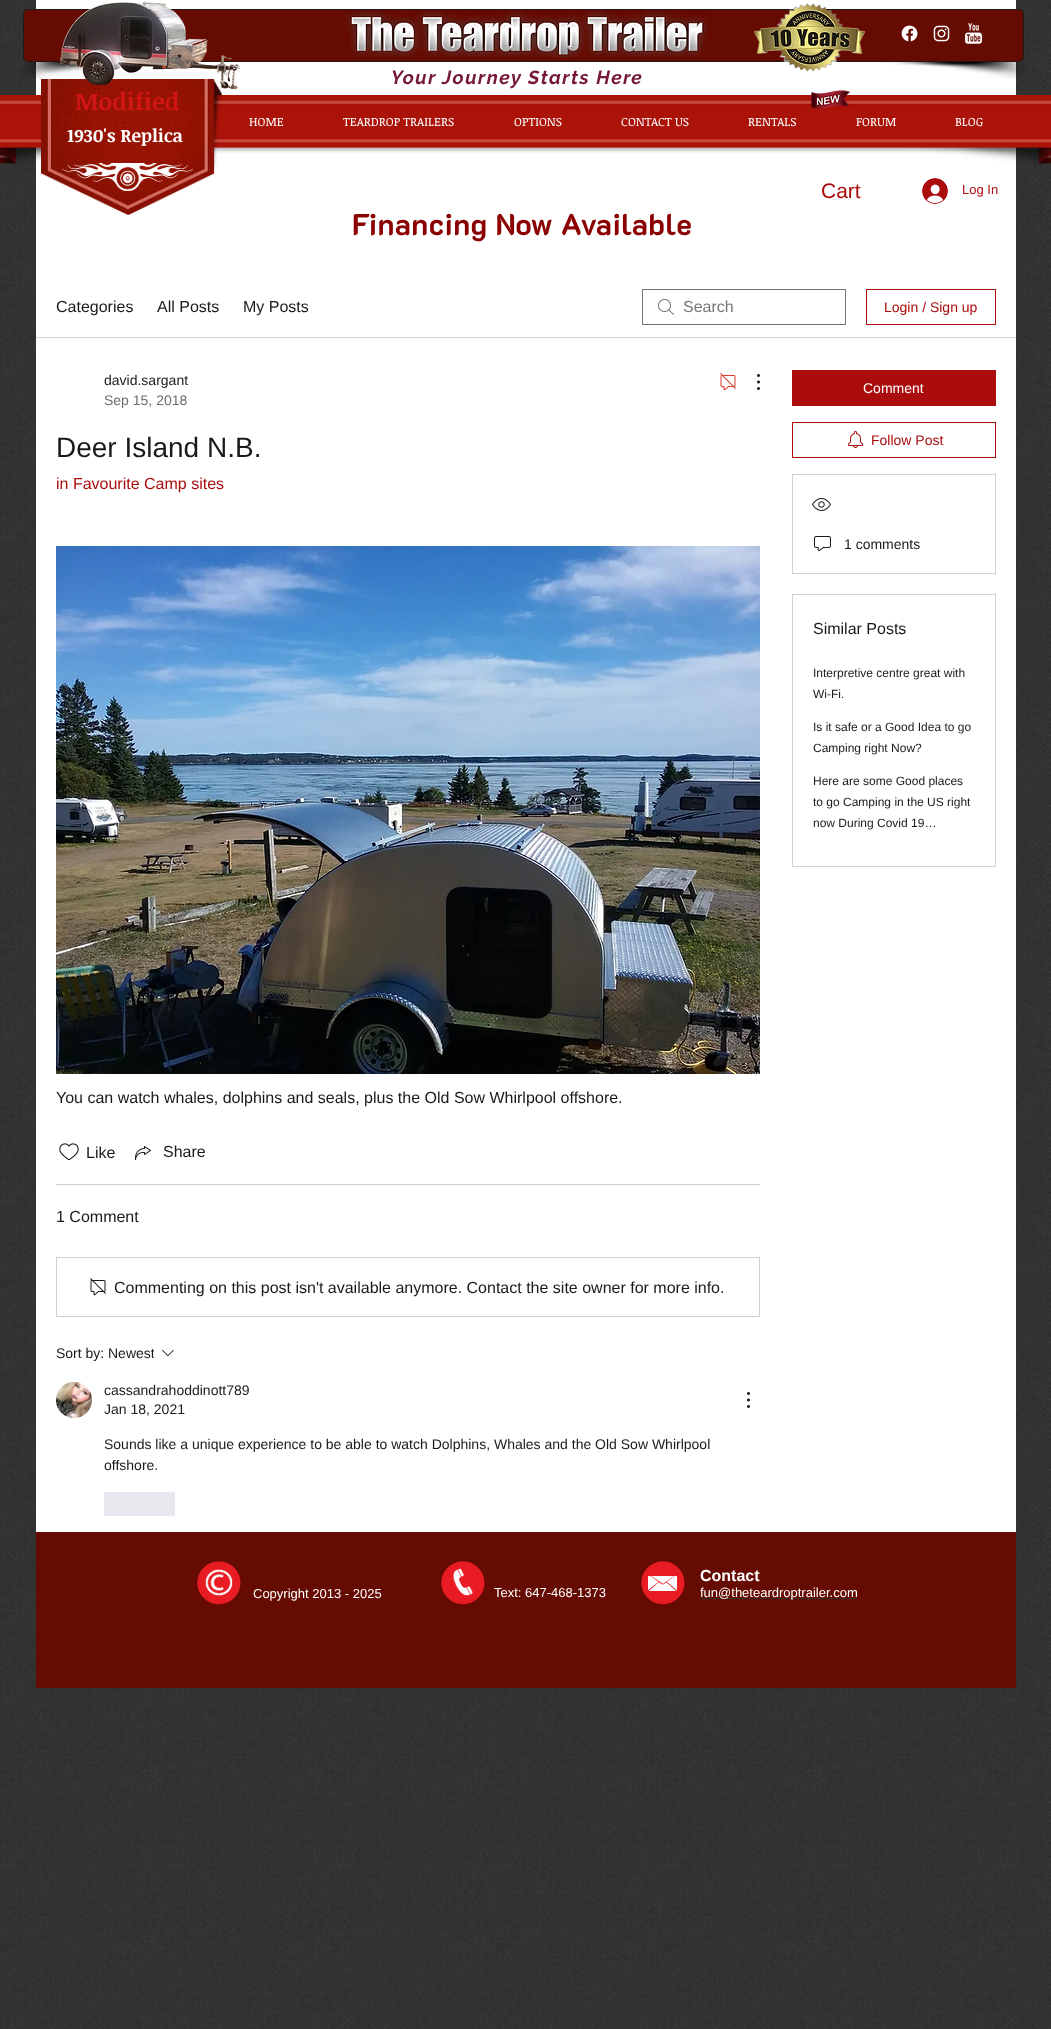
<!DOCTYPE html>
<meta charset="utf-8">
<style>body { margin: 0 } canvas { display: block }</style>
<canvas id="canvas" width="1051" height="2029"></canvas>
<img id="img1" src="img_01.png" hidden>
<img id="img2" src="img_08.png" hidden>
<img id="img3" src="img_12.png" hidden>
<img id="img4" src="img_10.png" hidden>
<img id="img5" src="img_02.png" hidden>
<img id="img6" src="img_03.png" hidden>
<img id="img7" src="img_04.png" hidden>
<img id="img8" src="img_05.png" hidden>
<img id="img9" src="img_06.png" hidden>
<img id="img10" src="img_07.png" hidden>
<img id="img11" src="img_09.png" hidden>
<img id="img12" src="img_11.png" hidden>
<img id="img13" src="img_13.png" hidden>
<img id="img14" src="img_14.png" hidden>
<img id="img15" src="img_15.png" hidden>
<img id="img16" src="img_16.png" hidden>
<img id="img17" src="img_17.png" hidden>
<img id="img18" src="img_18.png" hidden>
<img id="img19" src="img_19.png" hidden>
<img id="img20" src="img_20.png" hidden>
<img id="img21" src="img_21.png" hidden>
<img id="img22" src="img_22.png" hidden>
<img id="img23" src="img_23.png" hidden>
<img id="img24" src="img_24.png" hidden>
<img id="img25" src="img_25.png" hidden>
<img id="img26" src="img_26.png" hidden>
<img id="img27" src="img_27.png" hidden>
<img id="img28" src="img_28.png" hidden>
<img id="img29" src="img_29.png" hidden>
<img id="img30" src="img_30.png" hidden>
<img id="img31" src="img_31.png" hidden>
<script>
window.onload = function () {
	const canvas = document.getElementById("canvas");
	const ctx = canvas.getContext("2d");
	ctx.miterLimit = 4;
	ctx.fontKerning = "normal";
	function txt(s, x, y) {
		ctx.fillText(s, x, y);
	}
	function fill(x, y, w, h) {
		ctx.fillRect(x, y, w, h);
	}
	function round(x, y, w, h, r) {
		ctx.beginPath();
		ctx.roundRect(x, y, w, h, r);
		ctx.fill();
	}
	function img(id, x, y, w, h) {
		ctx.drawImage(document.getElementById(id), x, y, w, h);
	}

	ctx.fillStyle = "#2F2F2F";
	fill(0, 0, 1051, 2029);
	img("img1", 0, 0, 1051, 2029);
	ctx.fillStyle = "#FFFFFF";
	fill(36, 0, 980, 1532);
	ctx.fillStyle = "#660B02";
	ctx.beginPath();
	ctx.roundRect(23.5, 9.5, 1000, 52, 4.5);
	ctx.fill();
	ctx.strokeStyle = "#1A1A1A";
	ctx.stroke();
	img("img2", 22, 62, 128, 17);
	img("img3", 0, 95, 1051, 69);
	img("img4", 41, 79, 181, 136);
	img("img5", 60, 1, 180, 89);
	img("img6", 754, 3, 111, 69);
	img("img7", 346, 10, 363, 48);
	img("img8", 901, 25, 17, 17);
	img("img9", 933, 25, 17, 17);
	img("img10", 964, 23, 19, 21);
	img("img11", 879, 62, 146, 17);
	img("img12", 811, 90, 39, 19);
	img("img13", 62, 163, 131, 28);
	img("img14", 922, 178, 26, 26);
	ctx.fillStyle = "#D1D1D1";
	fill(36, 337, 980, 1);
	img("img15", 658, 299, 16, 16);
	ctx.strokeStyle = "#767676";
	ctx.strokeRect(642.5, 289.5, 203, 35);
	ctx.strokeStyle = "#AB0D0D";
	ctx.strokeRect(866.5, 289.5, 129, 35);
	img("img16", 720, 373, 16, 18);
	img("img17", 757, 374, 3, 16);
	img("img18", 56, 546, 704, 528);
	img("img19", 59, 1143, 20, 18);
	img("img20", 135, 1146, 16, 14);
	fill(56, 1184, 704, 1);
	ctx.strokeStyle = "#D1D1D1";
	ctx.strokeRect(56.5, 1257.5, 703, 59);
	img("img21", 90, 1278, 16, 18);
	img("img22", 162, 1349, 12, 8);
	img("img23", 56, 1382, 36, 36);
	img("img24", 747, 1392, 3, 16);
	ctx.fillStyle = "#E7E8ED";
	round(104, 1492, 71, 24, 2);
	ctx.fillStyle = "#AB0D0D";
	fill(792, 370, 204, 36);
	ctx.strokeStyle = "#AB0D0D";
	ctx.strokeRect(792.5, 422.5, 203, 35);
	img("img25", 848, 431, 15, 17);
	ctx.strokeStyle = "#D1D1D1";
	ctx.strokeRect(792.5, 474.5, 203, 99);
	img("img26", 812, 498, 19, 13);
	img("img27", 814, 536, 17, 15);
	ctx.strokeRect(792.5, 594.5, 203, 272);
	ctx.fillStyle = "#660B02";
	fill(36, 1532, 980, 156);
	img("img28", 197, 1561, 44, 44);
	img("img28", 441, 1561, 44, 44);
	img("img28", 641, 1561, 44, 44);
	img("img29", 205, 1569, 28, 27);
	img("img30", 453, 1568, 20, 28);
	img("img31", 648, 1576, 29, 15);
	ctx.fillStyle = "#2F2F2F";
	fill(700, 1598, 157, 1);
	ctx.letterSpacing = "1.5px";
	ctx.font = "italic bold 19px Raleway";
	ctx.fillStyle = "#751936";
	txt("Your Journey Starts Here", 391, 84);
	ctx.letterSpacing = "0px";
	ctx.font = "bold 24px Noticia Text";
	ctx.fillStyle = "#D21515";
	txt("Modified", 75, 110);
	ctx.font = "12px Noticia Text";
	ctx.fillStyle = "#FFFFFF";
	txt("HOME", 249, 126);
	txt("TEARDROP TRAILERS", 343, 126);
	txt("OPTIONS", 514, 126);
	txt("CONTACT US", 621, 126);
	txt("RENTALS", 748, 126);
	txt("FORUM", 856, 126);
	txt("BLOG", 955, 126);
	ctx.font = "bold 18px Noticia Text";
	txt("1930's Replica", 67, 142);
	ctx.font = "21px Liberation Sans";
	ctx.fillStyle = "#AB0D0D";
	txt("Cart", 821, 198);
	ctx.font = "13px Liberation Sans";
	txt("Log In", 962, 194);
	ctx.letterSpacing = "0.3px";
	ctx.font = "bold 30px 'K2D'";
	ctx.fillStyle = "#8B0000";
	txt("Financing Now Available", 352, 235);
	ctx.letterSpacing = "0px";
	ctx.font = "16px Liberation Sans";
	ctx.fillStyle = "#1A1A1A";
	txt("Categories", 56, 312);
	txt("All Posts", 157, 312);
	txt("My Posts", 243, 312);
	ctx.fillStyle = "#767676";
	txt("Search", 683, 312);
	ctx.font = "14px Liberation Sans";
	ctx.fillStyle = "#AB0D0D";
	txt("Login / Sign up", 884, 312);
	ctx.fillStyle = "#1A1A1A";
	txt("david.sargant", 104, 385);
	ctx.fillStyle = "#6C6C6C";
	txt("Sep 15, 2018", 104, 405);
	ctx.font = "28px Liberation Sans";
	ctx.fillStyle = "#1A1A1A";
	txt("Deer Island N.B.", 56, 457);
	ctx.font = "16px Liberation Sans";
	ctx.fillStyle = "#AB0D0D";
	txt("in Favourite Camp sites", 56, 489);
	ctx.fillStyle = "#1A1A1A";
	txt("You can watch whales, dolphins and seals, plus the Old Sow Whirlpool offshore.", 56, 1103);
	txt("Like", 86, 1158);
	txt("Share", 163, 1157);
	txt("1 Comment", 56, 1222);
	txt("Commenting on this post isn't available anymore. Contact the site owner for more info.", 114, 1293);
	ctx.font = "14px Liberation Sans";
	txt("Sort by:", 56, 1358);
	ctx.save();
	ctx.beginPath();
	ctx.rect(108, 1341, 46, 24);
	ctx.clip();
	txt("Newest", 108, 1358);
	ctx.restore();
	txt("cassandrahoddinott789", 104, 1395);
	txt("Jan 18, 2021", 104, 1414);
	txt("Sounds like a unique experience to be able to watch Dolphins, Whales and the Old Sow Whirlpool", 104, 1449);
	txt("offshore.", 104, 1470);
	ctx.fillStyle = "#FFFFFF";
	txt("Comment", 863, 393);
	ctx.fillStyle = "#AB0D0D";
	txt("Follow Post", 871, 445);
	ctx.fillStyle = "#1A1A1A";
	txt("1 comments", 844, 549);
	ctx.font = "16px Liberation Sans";
	txt("Similar Posts", 813, 634);
	ctx.font = "12px Liberation Sans";
	txt("Interpretive centre great with", 813, 677);
	txt("Wi-Fi.", 813, 698);
	txt("Is it safe or a Good Idea to go", 813, 731);
	txt("Camping right Now?", 813, 752);
	txt("Here are some Good places", 813, 785);
	txt("to go Camping in the US right", 813, 806);
	txt("now During Covid 19…", 813, 827);
	ctx.font = "bold 16px Liberation Sans";
	ctx.fillStyle = "#FFFFFF";
	txt("Contact", 700, 1581);
	ctx.font = "13px Liberation Sans";
	txt("fun@theteardroptrailer.com", 700, 1597);
	txt("Copyright 2013 - 2025", 253, 1598);
	txt("Text: 647-468-1373", 494, 1597);
};
</script>
